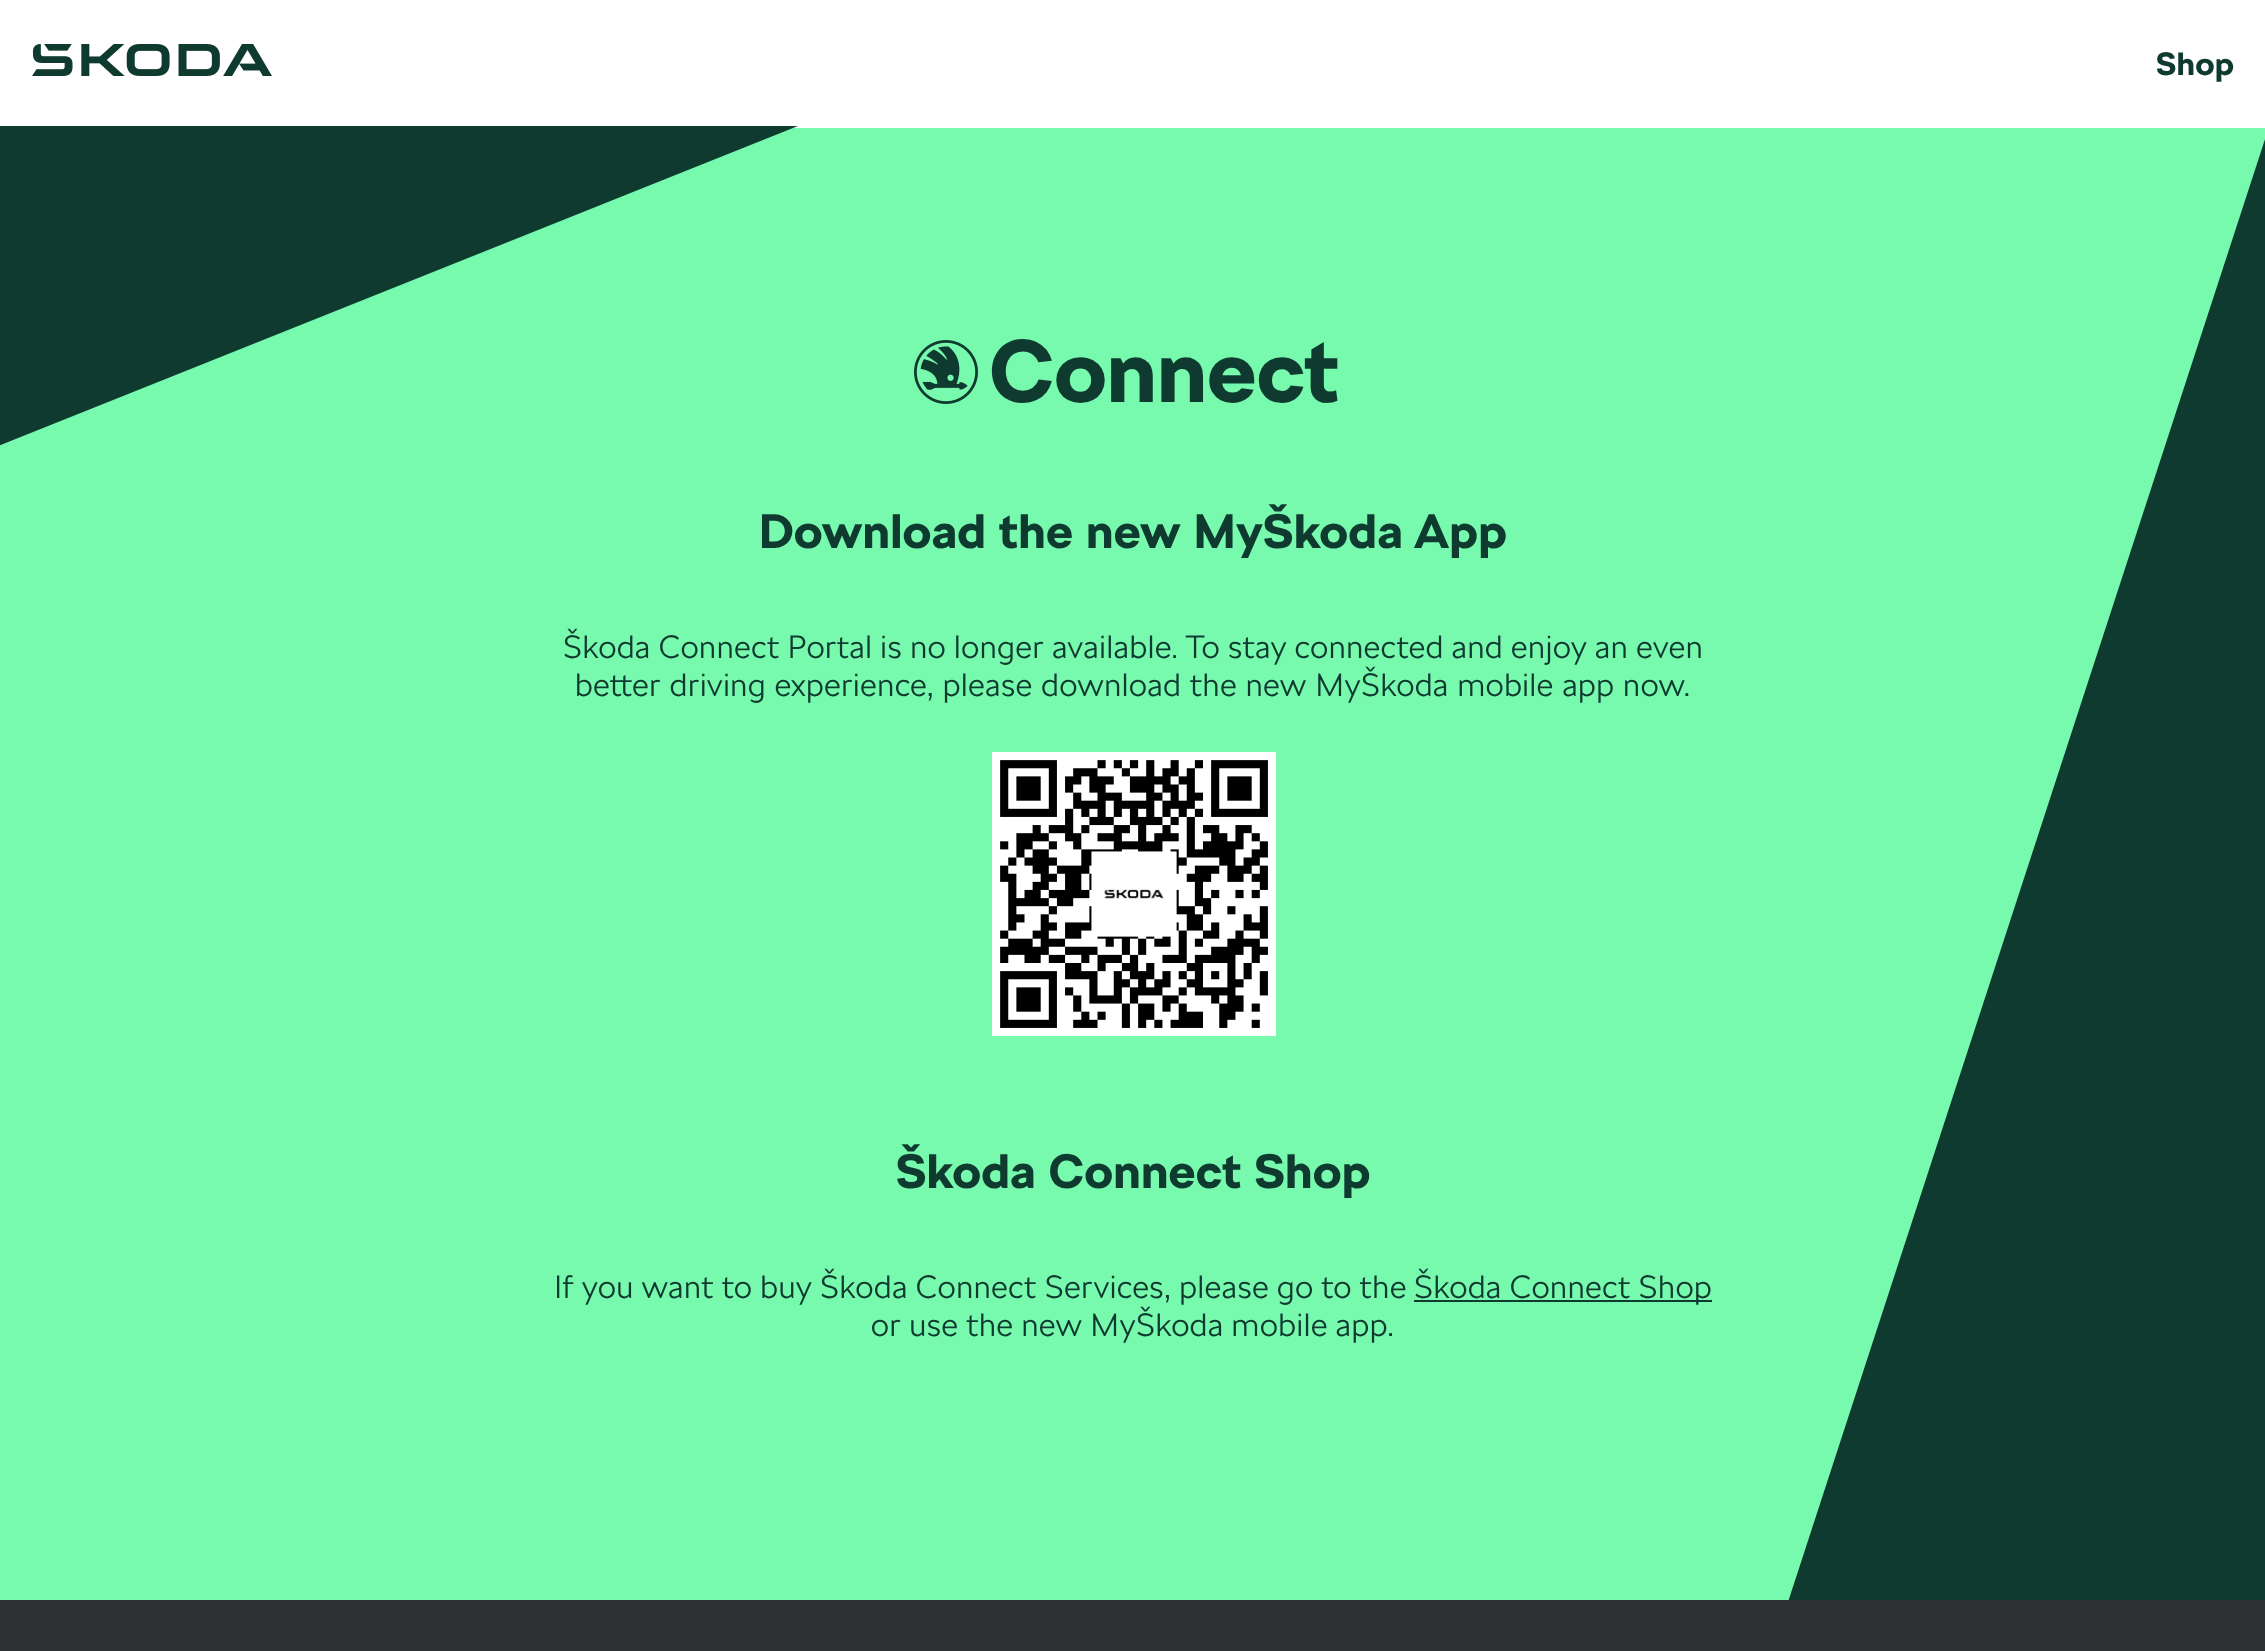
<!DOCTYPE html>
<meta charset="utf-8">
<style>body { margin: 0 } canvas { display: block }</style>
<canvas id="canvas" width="2265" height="1651"></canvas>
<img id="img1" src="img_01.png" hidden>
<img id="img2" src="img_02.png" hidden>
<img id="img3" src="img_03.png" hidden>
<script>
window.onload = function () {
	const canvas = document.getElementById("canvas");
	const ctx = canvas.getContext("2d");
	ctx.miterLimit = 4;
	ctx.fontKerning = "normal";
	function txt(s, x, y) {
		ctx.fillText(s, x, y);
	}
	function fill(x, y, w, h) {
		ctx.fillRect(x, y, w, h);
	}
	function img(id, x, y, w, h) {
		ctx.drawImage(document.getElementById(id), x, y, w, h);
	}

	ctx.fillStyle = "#78FAAE";
	fill(0, 0, 2265, 1651);
	ctx.fillStyle = "#FFFFFF";
	fill(0, 0, 2265, 128);
	img("img1", 32, 44, 240, 32);
	ctx.fillStyle = "#0E3A2F";
	ctx.beginPath();
	ctx.moveTo(-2, 126);
	ctx.lineTo(-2, 446);
	ctx.lineTo(798, 126);
	ctx.closePath();
	ctx.fill();
	img("img2", 914, 340, 64, 64);
	img("img3", 992, 752, 284, 284);
	fill(1414, 1300, 298, 2);
	ctx.beginPath();
	ctx.moveTo(1788, 1602);
	ctx.lineTo(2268, 1602);
	ctx.lineTo(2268, 130);
	ctx.closePath();
	ctx.fill();
	ctx.fillStyle = "#303132";
	fill(0, 1600, 2265, 51);
	ctx.letterSpacing = "0.65px";
	ctx.font = "bold 32px 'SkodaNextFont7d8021'";
	ctx.fillStyle = "#0E3A2F";
	txt("Shop", 2156, 75);
	ctx.font = "bold 88px 'SkodaNextFont7d8021'";
	txt("Connect", 990, 402);
	ctx.font = "bold 48px 'SkodaNextFont7d8021'";
	txt("Download the new MyŠkoda App", 759, 548);
	ctx.font = "300 32px 'SkodaNextFont7d8021'";
	txt("Škoda Connect Portal is no longer available. To stay connected and enjoy an even", 563, 658);
	ctx.wordSpacing = "0.75px";
	txt("better driving experience, please download the new MyŠkoda mobile app now.", 575, 696);
	ctx.wordSpacing = "0px";
	ctx.font = "bold 48px 'SkodaNextFont7d8021'";
	txt("Škoda Connect Shop", 896, 1188);
	ctx.font = "300 32px 'SkodaNextFont7d8021'";
	txt("If you want to buy Škoda Connect Services, please go to the", 554, 1298);
	txt("Škoda Connect Shop", 1414, 1298);
	txt("or use the new MyŠkoda mobile app.", 871, 1336);
};
</script>
